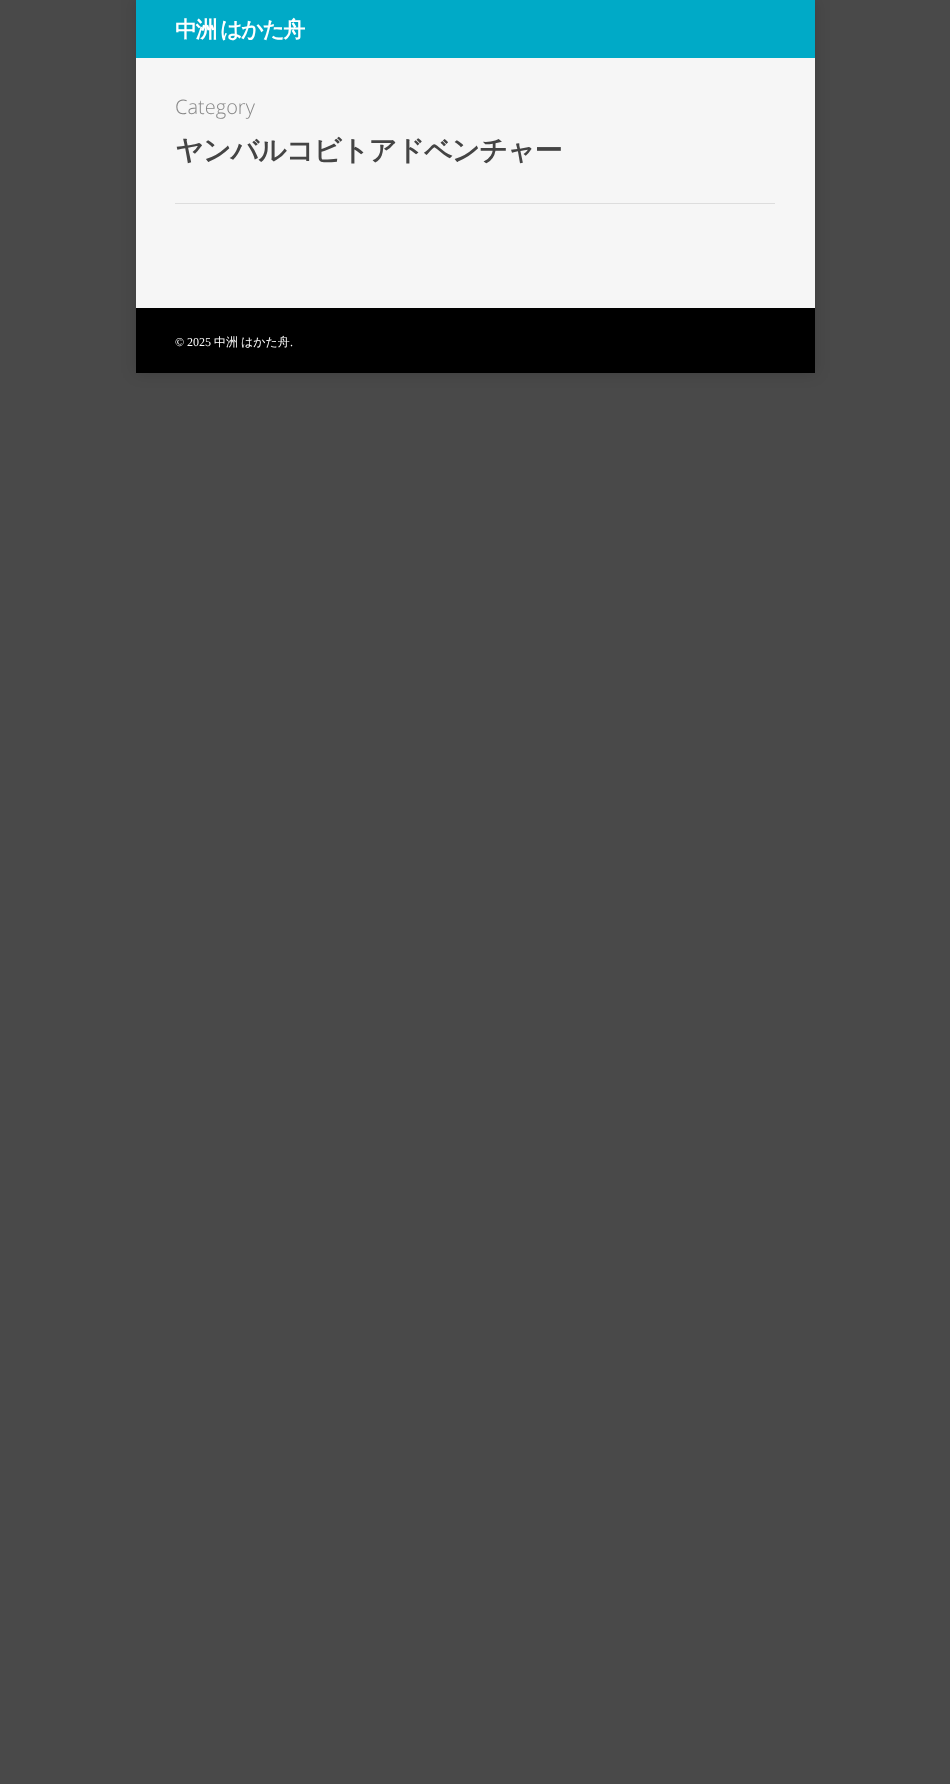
<!DOCTYPE html>
<meta charset="utf-8">
<style>body { margin: 0 } canvas { display: block }</style>
<canvas id="canvas" width="950" height="1784"></canvas>
<script>
window.onload = function () {
	const canvas = document.getElementById("canvas");
	const ctx = canvas.getContext("2d");
	ctx.miterLimit = 4;
	ctx.fontKerning = "normal";
	function txt(s, x, y) {
		ctx.fillText(s, x, y);
	}
	function fill(x, y, w, h) {
		ctx.fillRect(x, y, w, h);
	}

	ctx.fillStyle = "#494949";
	fill(0, 0, 950, 1784);
	ctx.fillStyle = "rgba(0, 0, 0, 0.15)";
	ctx.filter = "blur(7.5px)";
	ctx.beginPath();
	ctx.rect(136, 0, 679, 373);
	ctx.fill();
	ctx.filter = "none";
	ctx.fillStyle = "#00AAC7";
	fill(136, 0, 679, 58);
	ctx.fillStyle = "#F6F6F6";
	fill(136, 58, 679, 250);
	ctx.fillStyle = "#DDDDDD";
	fill(175, 203, 600, 1);
	ctx.fillStyle = "#000000";
	fill(136, 308, 679, 65);
	ctx.letterSpacing = "-1.5px";
	ctx.wordSpacing = "-1px";
	ctx.font = "bold 22px WenQuanYi Zen Hei";
	ctx.fillStyle = "#FFFFFF";
	txt("中洲 はかた舟", 175, 37);
	ctx.letterSpacing = "0px";
	ctx.wordSpacing = "0px";
	ctx.font = "300 20px Open Sans";
	ctx.fillStyle = "#888888";
	txt("Category", 175, 114);
	ctx.letterSpacing = "-1px";
	ctx.font = "bold 28px WenQuanYi Zen Hei";
	ctx.fillStyle = "#444444";
	txt("ヤンバルコビトアドベンチャー", 175, 160);
	ctx.letterSpacing = "0px";
	ctx.font = "12px Liberation Serif";
	ctx.fillStyle = "#FFFFFF";
	txt("© 2025", 175, 346);
	ctx.font = "500 12px WenQuanYi Zen Hei";
	txt("中洲", 214, 346);
	txt("はかた舟", 241, 346);
	ctx.font = "12px Liberation Serif";
	txt(".", 290, 346);
};
</script>
